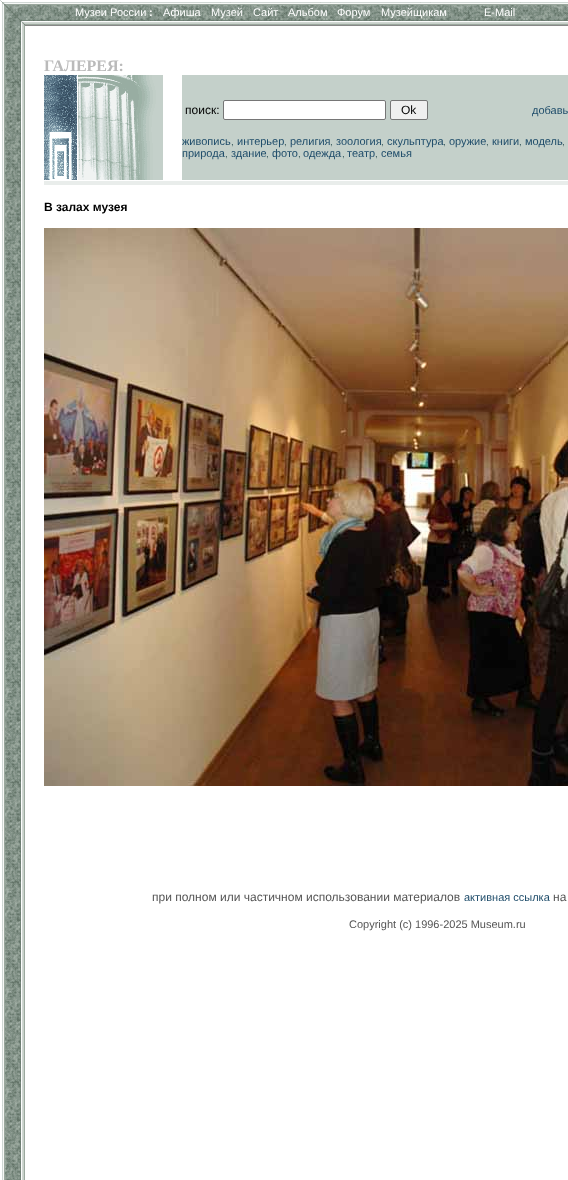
<!DOCTYPE html>
<meta charset="utf-8">
<style>body { margin: 0 } canvas { display: block }</style>
<canvas id="canvas" width="568" height="1180"></canvas>
<img id="img1" src="img_01.png" hidden>
<img id="img2" src="img_02.png" hidden>
<img id="img3" src="img_03.png" hidden>
<img id="img4" src="img_04.png" hidden>
<img id="img5" src="img_05.png" hidden>
<img id="img6" src="img_06.png" hidden>
<script>
window.onload = function () {
	const canvas = document.getElementById("canvas");
	const ctx = canvas.getContext("2d");
	ctx.miterLimit = 4;
	ctx.fontKerning = "normal";
	function txt(s, x, y) {
		ctx.fillText(s, x, y);
	}
	function fill(x, y, w, h) {
		ctx.fillRect(x, y, w, h);
	}
	function img(id, x, y, w, h) {
		ctx.drawImage(document.getElementById(id), x, y, w, h);
	}

	ctx.fillStyle = "#FFFFFF";
	fill(0, 0, 568, 1180);
	img("img1", 2, 25, 23, 1155);
	img("img2", 0, 0, 25, 25);
	img("img3", 25, 0, 543, 25);
	ctx.fillStyle = "#888888";
	fill(25, 25, 543, 1);
	img("img4", 44, 75, 33, 105);
	img("img5", 78, 75, 85, 105);
	ctx.fillStyle = "#C4D0CA";
	fill(182, 75, 386, 105);
	ctx.fillStyle = "#FFFFFF";
	ctx.beginPath();
	ctx.roundRect(223.5, 100.5, 162, 19, 1.5);
	ctx.fill();
	ctx.strokeStyle = "#767676";
	ctx.stroke();
	ctx.fillStyle = "#EFEFEF";
	ctx.beginPath();
	ctx.roundRect(390.5, 100.5, 37, 19, 1.5);
	ctx.fill();
	ctx.stroke();
	ctx.fillStyle = "#E9EDEB";
	fill(44, 181, 524, 4);
	img("img6", 44, 228, 524, 558);
	ctx.font = "11px Liberation Sans";
	ctx.fillStyle = "#FFFFFF";
	txt("Музеи России", 75, 16);
	ctx.font = "bold 11px Liberation Sans";
	txt(":", 149, 16);
	ctx.font = "11px Liberation Sans";
	txt("Афиша", 163, 16);
	txt("Музей", 211, 16);
	txt("Сайт", 253, 16);
	txt("Альбом", 288, 16);
	txt("Форум", 337, 16);
	txt("Музейщикам", 381, 16);
	txt("E-Mail", 484, 16);
	ctx.font = "bold 16px Liberation Serif";
	ctx.fillStyle = "#BABABA";
	txt("ГАЛЕРЕЯ:", 44, 71);
	ctx.font = "12px Liberation Sans";
	ctx.fillStyle = "#000000";
	txt("поиск:", 185, 114);
	txt("Ok", 401, 114);
	ctx.font = "11px Liberation Sans";
	ctx.fillStyle = "#1E4C6A";
	txt("добавь", 532, 114);
	txt("живопись", 182, 145);
	ctx.font = "10px Liberation Sans";
	ctx.fillStyle = "#39595C";
	txt(",", 231, 145);
	ctx.font = "11px Liberation Sans";
	ctx.fillStyle = "#1E4C6A";
	txt("интерьер", 237, 145);
	ctx.font = "10px Liberation Sans";
	ctx.fillStyle = "#39595C";
	txt(",", 284, 145);
	ctx.font = "11px Liberation Sans";
	ctx.fillStyle = "#1E4C6A";
	txt("религия", 290, 145);
	ctx.font = "10px Liberation Sans";
	ctx.fillStyle = "#39595C";
	txt(",", 330, 145);
	ctx.font = "11px Liberation Sans";
	ctx.fillStyle = "#1E4C6A";
	txt("зоология", 336, 145);
	ctx.font = "10px Liberation Sans";
	ctx.fillStyle = "#39595C";
	txt(",", 381, 145);
	ctx.font = "11px Liberation Sans";
	ctx.fillStyle = "#1E4C6A";
	txt("скульптура", 387, 145);
	ctx.font = "10px Liberation Sans";
	ctx.fillStyle = "#39595C";
	txt(",", 443, 145);
	ctx.font = "11px Liberation Sans";
	ctx.fillStyle = "#1E4C6A";
	txt("оружие", 449, 145);
	ctx.font = "10px Liberation Sans";
	ctx.fillStyle = "#39595C";
	txt(",", 486, 145);
	ctx.font = "11px Liberation Sans";
	ctx.fillStyle = "#1E4C6A";
	txt("книги", 492, 145);
	ctx.font = "10px Liberation Sans";
	ctx.fillStyle = "#39595C";
	txt(",", 519, 145);
	ctx.font = "11px Liberation Sans";
	ctx.fillStyle = "#1E4C6A";
	txt("модель", 525, 145);
	ctx.font = "10px Liberation Sans";
	ctx.fillStyle = "#39595C";
	txt(",", 562, 145);
	ctx.font = "11px Liberation Sans";
	ctx.fillStyle = "#1E4C6A";
	txt("природа", 182, 157);
	ctx.font = "10px Liberation Sans";
	ctx.fillStyle = "#39595C";
	txt(",", 225, 157);
	ctx.font = "11px Liberation Sans";
	ctx.fillStyle = "#1E4C6A";
	txt("здание", 231, 157);
	ctx.font = "10px Liberation Sans";
	ctx.fillStyle = "#39595C";
	txt(",", 266, 157);
	ctx.font = "11px Liberation Sans";
	ctx.fillStyle = "#1E4C6A";
	txt("фото", 272, 157);
	ctx.font = "10px Liberation Sans";
	ctx.fillStyle = "#39595C";
	txt(",", 298, 157);
	ctx.font = "11px Liberation Sans";
	ctx.fillStyle = "#1E4C6A";
	txt("одежда", 303, 157);
	ctx.font = "10px Liberation Sans";
	ctx.fillStyle = "#39595C";
	txt(",", 342, 157);
	ctx.font = "11px Liberation Sans";
	ctx.fillStyle = "#1E4C6A";
	txt("театр", 347, 157);
	ctx.font = "10px Liberation Sans";
	ctx.fillStyle = "#39595C";
	txt(",", 375, 157);
	ctx.font = "11px Liberation Sans";
	ctx.fillStyle = "#1E4C6A";
	txt("семья", 381, 157);
	ctx.font = "bold 12px Liberation Sans";
	ctx.fillStyle = "#000000";
	txt("В залах музея", 44, 211);
	ctx.font = "12px Liberation Sans";
	ctx.fillStyle = "#555555";
	txt("при полном или частичном использовании материалов", 152, 901);
	ctx.font = "11px Liberation Sans";
	ctx.fillStyle = "#1E4C6A";
	txt("активная ссылка", 464, 901);
	ctx.font = "12px Liberation Sans";
	ctx.fillStyle = "#555555";
	txt("на", 553, 901);
	ctx.font = "11px Liberation Sans";
	txt("Copyright (c) 1996-2025 Museum.ru", 349, 928);
};
</script>
